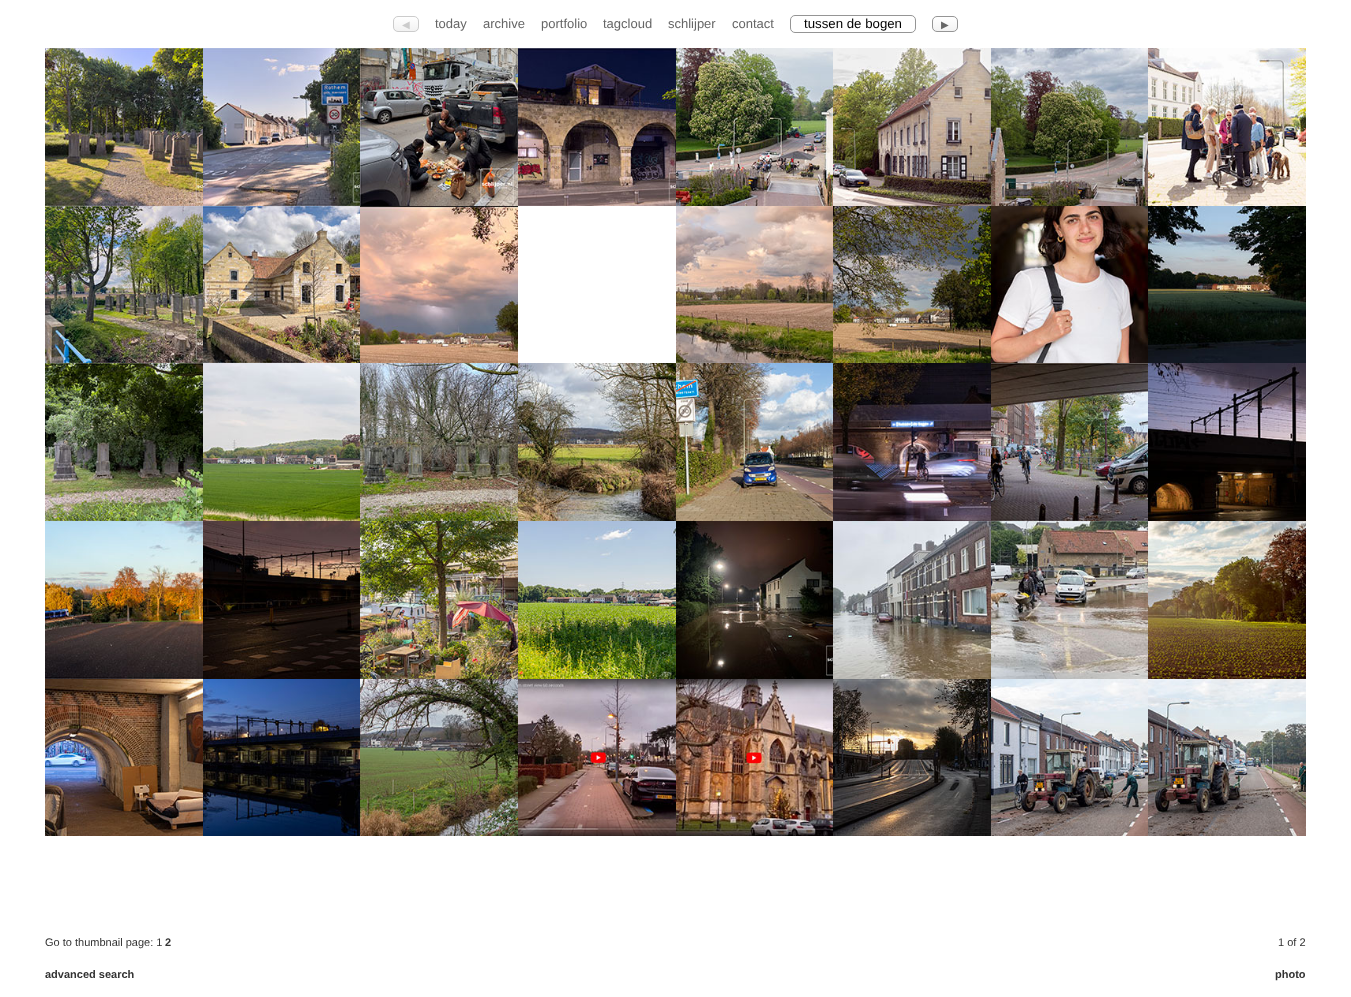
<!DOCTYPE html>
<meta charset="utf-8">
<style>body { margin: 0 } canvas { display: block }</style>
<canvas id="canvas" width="1351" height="997"></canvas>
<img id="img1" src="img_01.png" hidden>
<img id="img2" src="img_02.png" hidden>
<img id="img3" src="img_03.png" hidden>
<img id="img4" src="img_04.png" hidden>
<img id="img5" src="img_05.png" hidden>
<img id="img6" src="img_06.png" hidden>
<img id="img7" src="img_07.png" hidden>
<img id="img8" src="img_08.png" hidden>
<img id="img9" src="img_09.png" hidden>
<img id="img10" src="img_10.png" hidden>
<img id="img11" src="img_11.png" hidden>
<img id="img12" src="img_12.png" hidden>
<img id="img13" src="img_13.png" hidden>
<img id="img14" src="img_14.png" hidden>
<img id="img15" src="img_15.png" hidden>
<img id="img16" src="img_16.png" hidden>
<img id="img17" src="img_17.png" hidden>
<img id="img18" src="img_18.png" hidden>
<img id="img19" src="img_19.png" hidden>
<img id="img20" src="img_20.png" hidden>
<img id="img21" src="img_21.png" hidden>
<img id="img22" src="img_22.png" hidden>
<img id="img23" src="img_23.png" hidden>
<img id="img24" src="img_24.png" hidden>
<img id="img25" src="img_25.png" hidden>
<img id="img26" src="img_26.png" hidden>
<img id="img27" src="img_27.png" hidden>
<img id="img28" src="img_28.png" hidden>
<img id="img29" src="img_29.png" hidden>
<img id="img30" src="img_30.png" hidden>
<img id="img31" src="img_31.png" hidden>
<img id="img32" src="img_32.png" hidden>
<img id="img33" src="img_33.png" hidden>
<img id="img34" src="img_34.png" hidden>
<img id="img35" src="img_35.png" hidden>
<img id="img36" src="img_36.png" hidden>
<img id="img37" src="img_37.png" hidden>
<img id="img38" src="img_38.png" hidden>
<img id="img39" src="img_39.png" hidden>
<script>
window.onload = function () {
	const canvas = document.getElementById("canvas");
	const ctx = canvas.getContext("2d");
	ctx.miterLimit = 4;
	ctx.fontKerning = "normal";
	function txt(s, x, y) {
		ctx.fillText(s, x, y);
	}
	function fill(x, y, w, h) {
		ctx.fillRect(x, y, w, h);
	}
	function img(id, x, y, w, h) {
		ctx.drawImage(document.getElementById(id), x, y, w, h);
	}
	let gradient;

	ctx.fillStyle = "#FFFFFF";
	fill(0, 0, 1351, 997);
	ctx.save();
	ctx.beginPath();
	ctx.roundRect(393, 16, 26, 16, 5);
	ctx.clip();
	gradient = ctx.createLinearGradient(406, 17, 406, 31);
	gradient.addColorStop(0, "#FFFFFF");
	gradient.addColorStop(1, "#F2F2F2");
	ctx.fillStyle = gradient;
	fill(393, 17, 26, 14);
	ctx.restore();
	ctx.beginPath();
	ctx.roundRect(393.5, 16.5, 25, 15, 4.5);
	ctx.strokeStyle = "#CCCCCC";
	ctx.stroke();
	ctx.beginPath();
	ctx.roundRect(790.5, 15.5, 125, 17, 4.5);
	ctx.strokeStyle = "#959595";
	ctx.stroke();
	ctx.save();
	ctx.beginPath();
	ctx.roundRect(932, 16, 26, 16, 5);
	ctx.clip();
	gradient = ctx.createLinearGradient(945, 17, 945, 31);
	gradient.addColorStop(0, "#FFFFFF");
	gradient.addColorStop(1, "#F2F2F2");
	ctx.fillStyle = gradient;
	fill(932, 17, 26, 14);
	ctx.restore();
	ctx.beginPath();
	ctx.roundRect(932.5, 16.5, 25, 15, 4.5);
	ctx.stroke();
	img("img1", 45, 48, 158, 158);
	img("img2", 203, 48, 157, 158);
	img("img3", 360, 48, 158, 158);
	img("img4", 518, 48, 158, 158);
	img("img5", 676, 48, 157, 158);
	img("img6", 833, 48, 158, 158);
	img("img7", 991, 48, 157, 158);
	img("img8", 1148, 48, 158, 158);
	img("img9", 45, 206, 158, 157);
	img("img10", 203, 206, 157, 157);
	img("img11", 360, 206, 158, 157);
	img("img12", 676, 206, 157, 157);
	img("img13", 833, 206, 158, 157);
	img("img14", 991, 206, 157, 157);
	img("img15", 1148, 206, 158, 157);
	img("img16", 45, 363, 158, 158);
	img("img17", 203, 363, 157, 158);
	img("img18", 360, 363, 158, 158);
	img("img19", 518, 363, 158, 158);
	img("img20", 676, 363, 157, 158);
	img("img21", 833, 363, 158, 158);
	img("img22", 991, 363, 157, 158);
	img("img23", 1148, 363, 158, 158);
	img("img24", 45, 521, 158, 158);
	img("img25", 203, 521, 157, 158);
	img("img26", 360, 521, 158, 158);
	img("img27", 518, 521, 158, 158);
	img("img28", 676, 521, 157, 158);
	img("img29", 833, 521, 158, 158);
	img("img30", 991, 521, 157, 158);
	img("img31", 1148, 521, 158, 158);
	img("img32", 45, 679, 158, 157);
	img("img33", 203, 679, 157, 157);
	img("img34", 360, 679, 158, 157);
	img("img35", 518, 679, 158, 157);
	img("img36", 676, 679, 157, 157);
	img("img37", 833, 679, 158, 157);
	img("img38", 991, 679, 157, 157);
	img("img39", 1148, 679, 158, 157);
	ctx.font = "10px DejaVu Sans";
	ctx.fillStyle = "#CCCCCC";
	txt("◀", 402, 28);
	ctx.font = "13px Liberation Sans";
	ctx.fillStyle = "#666666";
	txt("today", 435, 28);
	txt("archive", 483, 28);
	txt("portfolio", 541, 28);
	txt("tagcloud", 603, 28);
	txt("schlijper", 668, 28);
	txt("contact", 732, 28);
	ctx.font = "13.25px Liberation Sans";
	ctx.fillStyle = "#000000";
	txt("tussen de bogen", 804, 28);
	ctx.font = "10px DejaVu Sans";
	ctx.fillStyle = "#666666";
	txt("▶", 941, 28);
	ctx.font = "11px Liberation Sans";
	ctx.fillStyle = "#333333";
	txt("Go to thumbnail page: 1", 45, 946);
	ctx.font = "bold 11px Liberation Sans";
	txt("2", 165, 946);
	txt("advanced search", 45, 978);
	ctx.font = "11px Liberation Sans";
	txt("1 of 2", 1278, 946);
	ctx.font = "bold 11px Liberation Sans";
	txt("photo", 1275, 978);
};
</script>
